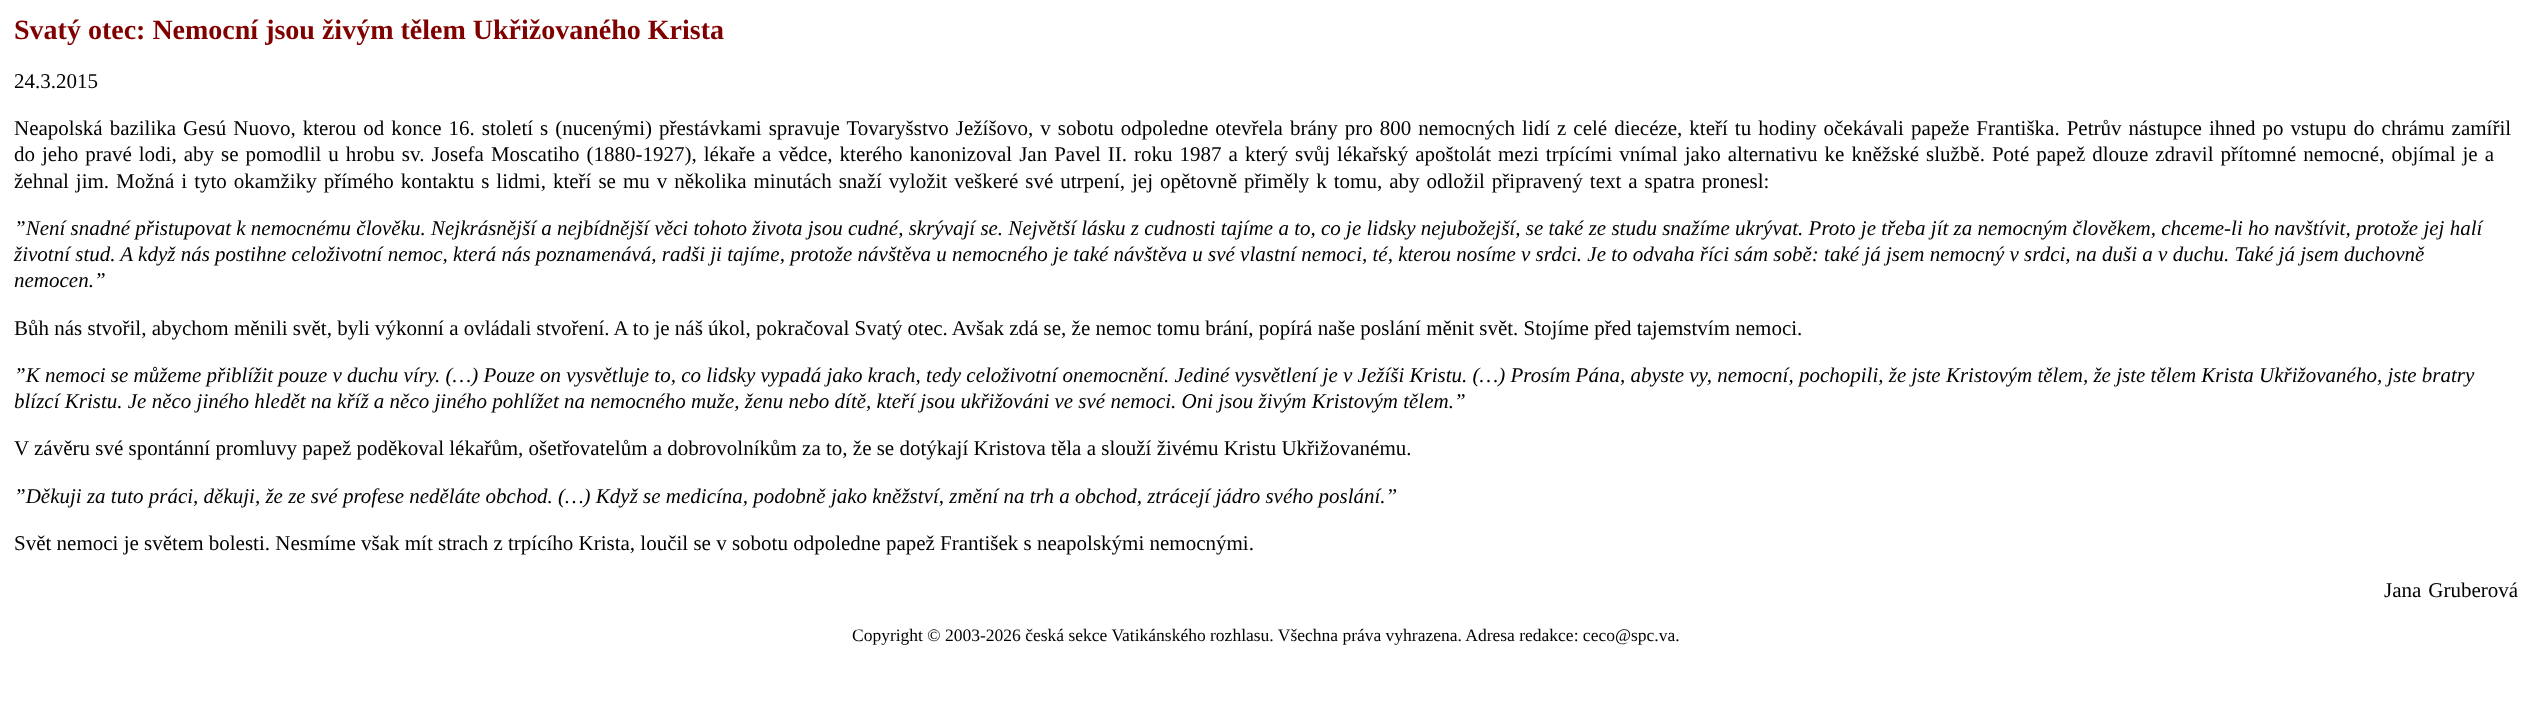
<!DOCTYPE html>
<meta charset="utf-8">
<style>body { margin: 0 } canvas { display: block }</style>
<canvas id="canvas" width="2532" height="711"></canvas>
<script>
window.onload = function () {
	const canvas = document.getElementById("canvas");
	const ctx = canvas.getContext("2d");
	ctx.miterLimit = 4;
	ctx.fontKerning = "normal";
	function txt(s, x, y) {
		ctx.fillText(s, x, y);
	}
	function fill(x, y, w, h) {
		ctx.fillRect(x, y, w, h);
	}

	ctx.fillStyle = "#FFFFFF";
	fill(0, 0, 2532, 711);
	ctx.font = "bold 28px Liberation Serif";
	ctx.fillStyle = "#800000";
	txt("Svatý otec: Nemocní jsou živým tělem Ukřižovaného Krista", 14, 39);
	ctx.font = "21px Liberation Serif";
	ctx.fillStyle = "#000000";
	txt("24.3.2015", 14, 88);
	ctx.wordSpacing = "1.75px";
	txt("Neapolská bazilika Gesú Nuovo, kterou od konce 16. století s (nucenými) přestávkami spravuje Tovaryšstvo Ježíšovo, v sobotu odpoledne otevřela brány pro 800 nemocných lidí z celé diecéze, kteří tu hodiny očekávali papeže Františka. Petrův nástupce ihned po vstupu do chrámu zamířil", 14, 135);
	txt("do jeho pravé lodi, aby se pomodlil u hrobu sv. Josefa Moscatiho (1880-1927), lékaře a vědce, kterého kanonizoval Jan Pavel II. roku 1987 a který svůj lékařský apoštolát mezi trpícími vnímal jako alternativu ke kněžské službě. Poté papež dlouze zdravil přítomné nemocné, objímal je a", 14, 161);
	txt("žehnal jim. Možná i tyto okamžiky přímého kontaktu s lidmi, kteří se mu v několika minutách snaží vyložit veškeré své utrpení, jej opětovně přiměly k tomu, aby odložil připravený text a spatra pronesl:", 14, 188);
	ctx.wordSpacing = "0px";
	ctx.font = "italic 21px Liberation Serif";
	txt("”Není snadné přistupovat k nemocnému člověku. Nejkrásnější a nejbídnější věci tohoto života jsou cudné, skrývají se. Největší lásku z cudnosti tajíme a to, co je lidsky nejubožejší, se také ze studu snažíme ukrývat. Proto je třeba jít za nemocným člověkem, chceme-li ho navštívit, protože jej halí", 14, 235);
	txt("životní stud. A když nás postihne celoživotní nemoc, která nás poznamenává, radši ji tajíme, protože návštěva u nemocného je také návštěva u své vlastní nemoci, té, kterou nosíme v srdci. Je to odvaha říci sám sobě: také já jsem nemocný v srdci, na duši a v duchu. Také já jsem duchovně", 14, 261);
	txt("nemocen.”", 14, 287);
	ctx.font = "21px Liberation Serif";
	txt("Bůh nás stvořil, abychom měnili svět, byli výkonní a ovládali stvoření. A to je náš úkol, pokračoval Svatý otec. Avšak zdá se, že nemoc tomu brání, popírá naše poslání měnit svět. Stojíme před tajemstvím nemoci.", 14, 335);
	ctx.font = "italic 21px Liberation Serif";
	txt("”K nemoci se můžeme přiblížit pouze v duchu víry. (…) Pouze on vysvětluje to, co lidsky vypadá jako krach, tedy celoživotní onemocnění. Jediné vysvětlení je v Ježíši Kristu. (…) Prosím Pána, abyste vy, nemocní, pochopili, že jste Kristovým tělem, že jste tělem Krista Ukřižovaného, jste bratry", 14, 382);
	txt("blízcí Kristu. Je něco jiného hledět na kříž a něco jiného pohlížet na nemocného muže, ženu nebo dítě, kteří jsou ukřižováni ve své nemoci. Oni jsou živým Kristovým tělem.”", 14, 408);
	ctx.font = "21px Liberation Serif";
	txt("V závěru své spontánní promluvy papež poděkoval lékařům, ošetřovatelům a dobrovolníkům za to, že se dotýkají Kristova těla a slouží živému Kristu Ukřižovanému.", 14, 455);
	ctx.font = "italic 21px Liberation Serif";
	txt("”Děkuji za tuto práci, děkuji, že ze své profese neděláte obchod. (…) Když se medicína, podobně jako kněžství, změní na trh a obchod, ztrácejí jádro svého poslání.”", 14, 503);
	ctx.font = "21px Liberation Serif";
	txt("Svět nemoci je světem bolesti. Nesmíme však mít strach z trpícího Krista, loučil se v sobotu odpoledne papež František s neapolskými nemocnými.", 14, 550);
	ctx.wordSpacing = "1.75px";
	txt("Jana Gruberová", 2384, 597);
	ctx.wordSpacing = "0px";
	ctx.font = "17.5px Liberation Serif";
	txt("Copyright © 2003-2026 česká sekce Vatikánského rozhlasu. Všechna práva vyhrazena. Adresa redakce: ceco@spc.va.", 852, 641);
};
</script>
